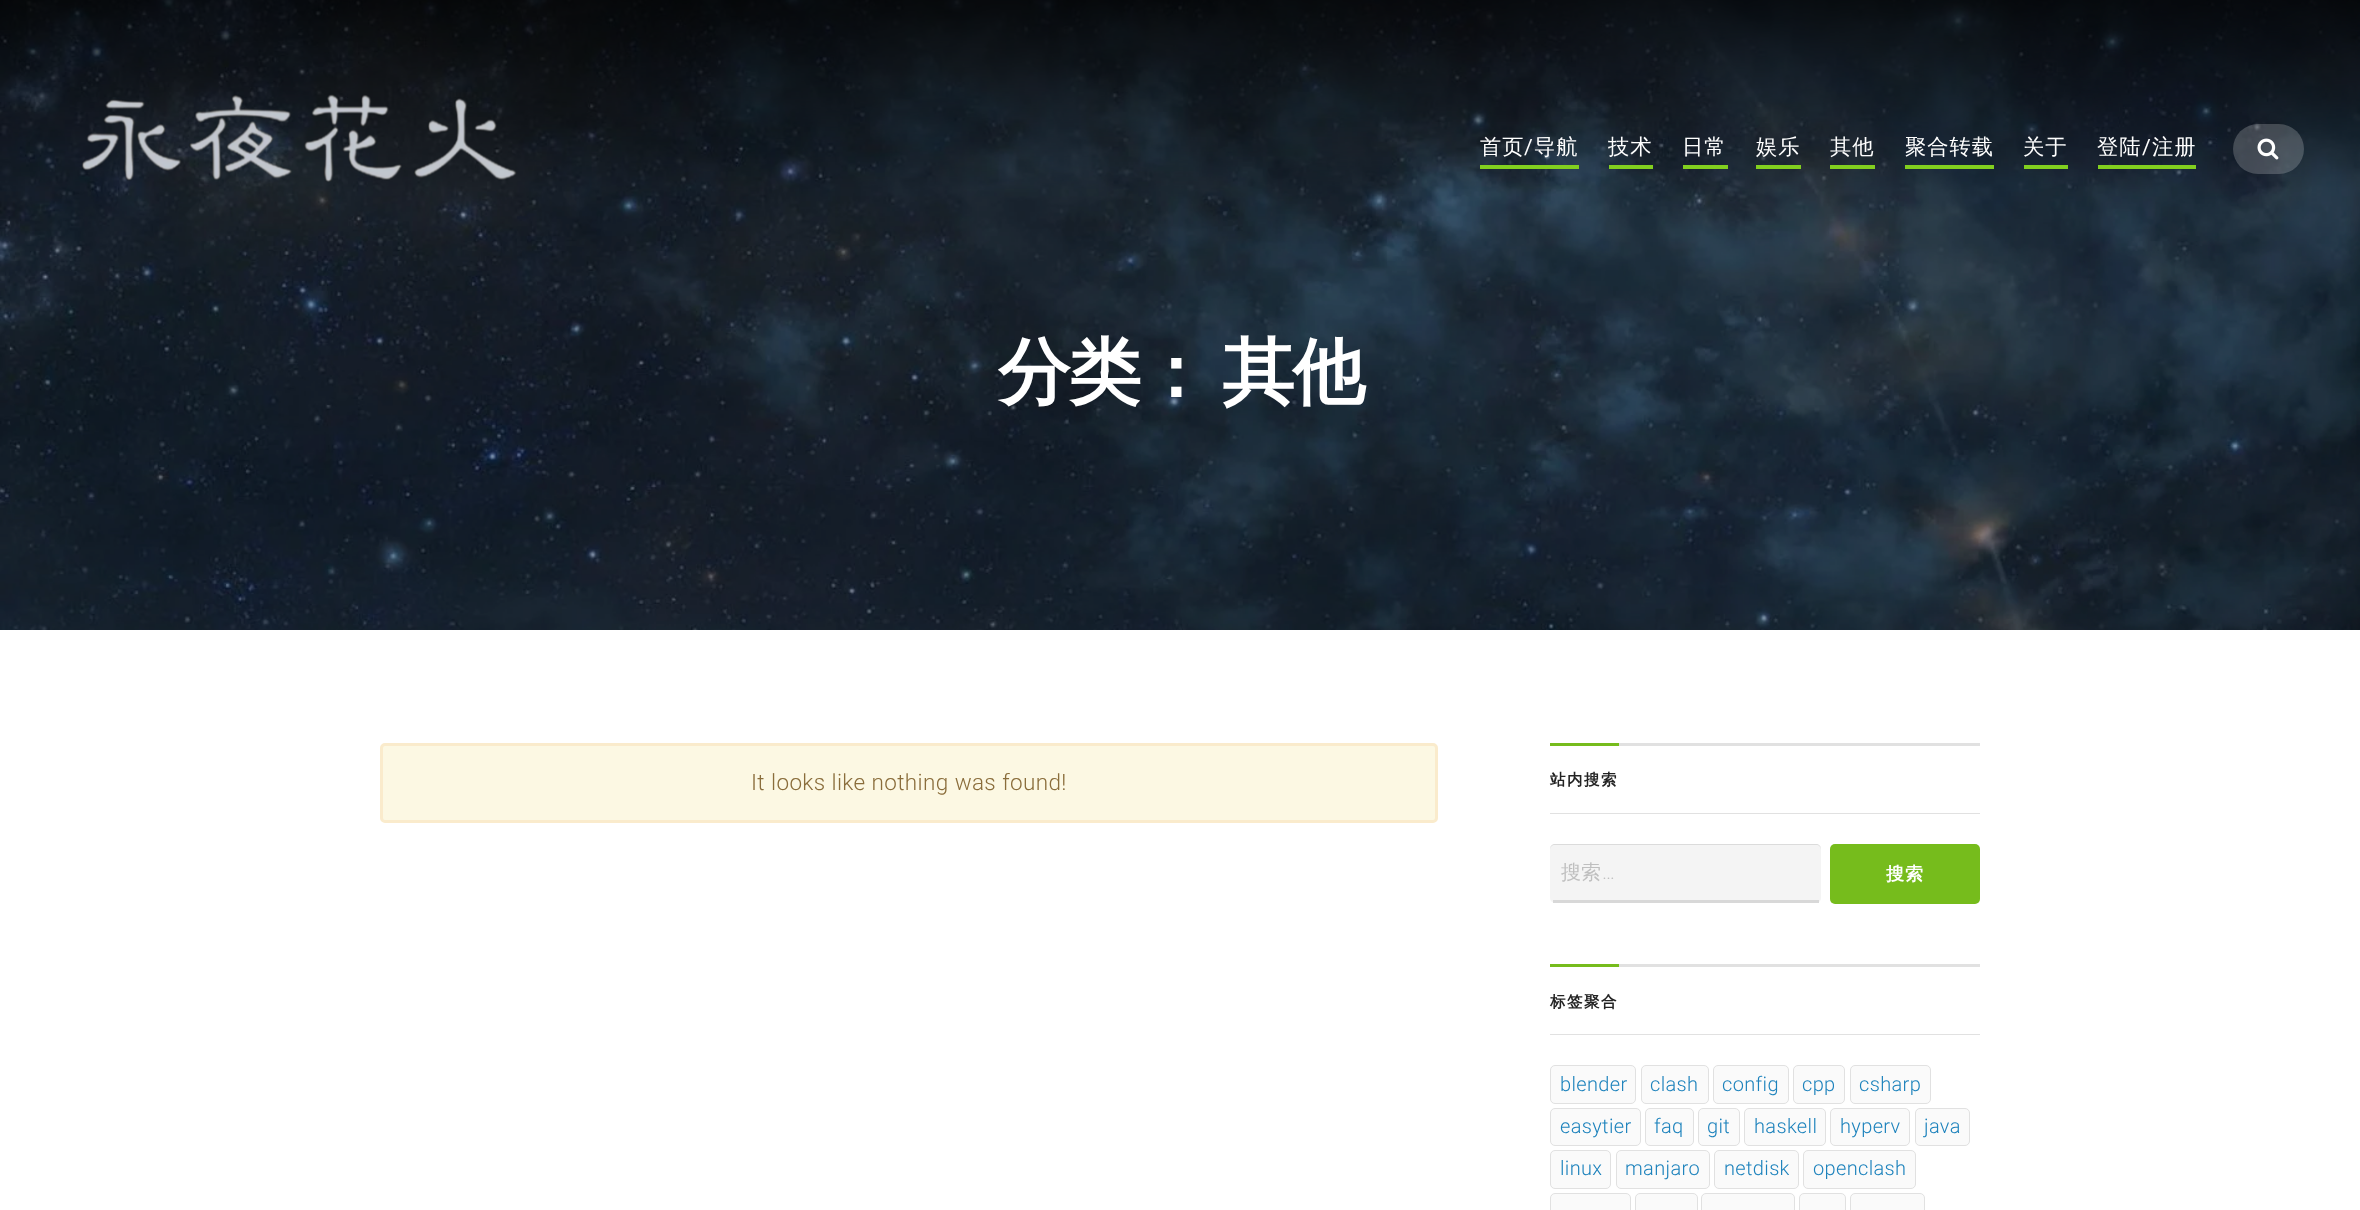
<!DOCTYPE html>
<meta charset="utf-8">
<style>body { margin: 0 } canvas { display: block }</style>
<canvas id="canvas" width="2360" height="1210"></canvas>
<img id="img1" src="img_03.png" hidden>
<img id="img2" src="img_01.png" hidden>
<img id="img3" src="img_02.png" hidden>
<script>
window.onload = function () {
	const canvas = document.getElementById("canvas");
	const ctx = canvas.getContext("2d");
	ctx.miterLimit = 4;
	ctx.fontKerning = "normal";
	function txt(s, x, y) {
		ctx.fillText(s, x, y);
	}
	function fill(x, y, w, h) {
		ctx.fillRect(x, y, w, h);
	}
	function round(x, y, w, h, r) {
		ctx.beginPath();
		ctx.roundRect(x, y, w, h, r);
		ctx.fill();
	}
	function img(id, x, y, w, h) {
		ctx.drawImage(document.getElementById(id), x, y, w, h);
	}

	ctx.fillStyle = "#FFFFFF";
	fill(0, 0, 2360, 1210);
	img("img1", 0, 0, 2360, 630);
	img("img2", 82, 94, 435, 88);
	ctx.fillStyle = "#82CF1F";
	fill(1480, 165, 99, 4);
	fill(1609, 165, 44, 4);
	fill(1683, 165, 45, 4);
	fill(1756, 165, 45, 4);
	fill(1830, 165, 45, 4);
	fill(1905, 165, 89, 4);
	fill(2024, 165, 44, 4);
	fill(2098, 165, 98, 4);
	ctx.fillStyle = "rgba(255, 255, 255, 0.2)";
	round(2233, 124, 71, 50, 25);
	img("img3", 2257, 138, 22, 22);
	ctx.fillStyle = "#FCF8E3";
	ctx.beginPath();
	ctx.roundRect(381.5, 744.5, 1055, 77, 3.5);
	ctx.fill();
	ctx.strokeStyle = "#FAEBCC";
	ctx.lineWidth = 3;
	ctx.stroke();
	ctx.fillStyle = "#E1E1E1";
	fill(1619, 743, 361, 3);
	fill(1550, 813, 430, 1);
	ctx.fillStyle = "#76BC1C";
	fill(1550, 743, 69, 3);
	ctx.fillStyle = "#F4F4F4";
	round(1550, 844, 271, 59, 5);
	ctx.fillStyle = "rgba(0, 0, 0, 0.1)";
	ctx.beginPath();
	ctx.moveTo(1555, 845);
	ctx.lineTo(1816, 845);
	ctx.bezierCurveTo(1819, 845, 1821, 847, 1821, 850);
	ctx.lineTo(1821, 898);
	ctx.lineTo(1821, 849);
	ctx.bezierCurveTo(1821, 846, 1819, 844, 1816, 844);
	ctx.lineTo(1555, 844);
	ctx.bezierCurveTo(1552, 844, 1550, 846, 1550, 849);
	ctx.lineTo(1550, 850);
	ctx.bezierCurveTo(1550, 847, 1552, 845, 1555, 845);
	ctx.closePath();
	ctx.fill();
	ctx.fillStyle = "#D8D8D8";
	fill(1553, 900, 266, 3);
	ctx.fillStyle = "#76BC1C";
	round(1830, 844, 150, 60, 5);
	ctx.fillStyle = "#E1E1E1";
	fill(1619, 964, 361, 3);
	fill(1550, 1034, 430, 1);
	ctx.fillStyle = "#76BC1C";
	fill(1550, 964, 69, 3);
	ctx.fillStyle = "#FAFAFA";
	ctx.beginPath();
	ctx.roundRect(1550.5, 1065.5, 85, 38, 4.5);
	ctx.fill();
	ctx.strokeStyle = "#E1E1E1";
	ctx.lineWidth = 1;
	ctx.stroke();
	ctx.beginPath();
	ctx.roundRect(1641.5, 1065.5, 67, 38, 4.5);
	ctx.fill();
	ctx.stroke();
	ctx.beginPath();
	ctx.roundRect(1713.5, 1065.5, 75, 38, 4.5);
	ctx.fill();
	ctx.stroke();
	ctx.beginPath();
	ctx.roundRect(1793.5, 1065.5, 51, 38, 4.5);
	ctx.fill();
	ctx.stroke();
	ctx.beginPath();
	ctx.roundRect(1850.5, 1065.5, 80, 38, 4.5);
	ctx.fill();
	ctx.stroke();
	ctx.beginPath();
	ctx.roundRect(1550.5, 1108.5, 90, 37, 4.5);
	ctx.fill();
	ctx.stroke();
	ctx.beginPath();
	ctx.roundRect(1645.5, 1108.5, 48, 37, 4.5);
	ctx.fill();
	ctx.stroke();
	ctx.beginPath();
	ctx.roundRect(1698.5, 1108.5, 41, 37, 4.5);
	ctx.fill();
	ctx.stroke();
	ctx.beginPath();
	ctx.roundRect(1744.5, 1108.5, 81, 37, 4.5);
	ctx.fill();
	ctx.stroke();
	ctx.beginPath();
	ctx.roundRect(1830.5, 1108.5, 79, 37, 4.5);
	ctx.fill();
	ctx.stroke();
	ctx.beginPath();
	ctx.roundRect(1915.5, 1108.5, 54, 37, 4.5);
	ctx.fill();
	ctx.stroke();
	ctx.beginPath();
	ctx.roundRect(1550.5, 1150.5, 60, 38, 4.5);
	ctx.fill();
	ctx.stroke();
	ctx.beginPath();
	ctx.roundRect(1616.5, 1150.5, 93, 38, 4.5);
	ctx.fill();
	ctx.stroke();
	ctx.beginPath();
	ctx.roundRect(1714.5, 1150.5, 84, 38, 4.5);
	ctx.fill();
	ctx.stroke();
	ctx.beginPath();
	ctx.roundRect(1803.5, 1150.5, 112, 38, 4.5);
	ctx.fill();
	ctx.stroke();
	ctx.beginPath();
	ctx.roundRect(1550.5, 1193.5, 80, 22, 4.5);
	ctx.fill();
	ctx.stroke();
	ctx.beginPath();
	ctx.roundRect(1635.5, 1193.5, 62, 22, 4.5);
	ctx.fill();
	ctx.stroke();
	ctx.beginPath();
	ctx.roundRect(1701.5, 1193.5, 93, 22, 4.5);
	ctx.fill();
	ctx.stroke();
	ctx.beginPath();
	ctx.roundRect(1799.5, 1193.5, 46, 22, 4.5);
	ctx.fill();
	ctx.stroke();
	ctx.beginPath();
	ctx.roundRect(1850.5, 1193.5, 74, 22, 4.5);
	ctx.fill();
	ctx.stroke();
	ctx.letterSpacing = "1px";
	ctx.font = "500 21.25px WenQuanYi Zen Hei";
	ctx.fillStyle = "#FFFFFF";
	txt("首页", 1480, 154);
	ctx.font = "21.25px Roboto";
	txt("/", 1524, 154);
	ctx.font = "500 21.25px WenQuanYi Zen Hei";
	txt("导航", 1534, 154);
	txt("技术", 1608, 154);
	txt("日常", 1682, 154);
	txt("娱乐", 1756, 154);
	txt("其他", 1830, 154);
	txt("聚合转载", 1905, 154);
	txt("关于", 2023, 154);
	txt("登陆", 2097, 154);
	ctx.font = "21.25px Roboto";
	txt("/", 2142, 154);
	ctx.font = "500 21.25px WenQuanYi Zen Hei";
	txt("注册", 2152, 154);
	ctx.letterSpacing = "-2px";
	ctx.font = "bold 72.5px WenQuanYi Zen Hei";
	txt("分类：", 998, 397);
	txt("其他", 1222, 397);
	ctx.letterSpacing = "0.35px";
	ctx.wordSpacing = "0.25px";
	ctx.font = "300 22.5px Roboto";
	ctx.fillStyle = "#8A6D3B";
	txt("It looks like nothing was found!", 751, 790);
	ctx.letterSpacing = "1.5px";
	ctx.wordSpacing = "0px";
	ctx.font = "bold 15.5px WenQuanYi Zen Hei";
	ctx.fillStyle = "#232323";
	txt("站内搜索", 1550, 785);
	ctx.letterSpacing = "0px";
	ctx.font = "500 20px WenQuanYi Zen Hei";
	ctx.fillStyle = "#BFBFBF";
	txt("搜索", 1561, 879);
	ctx.font = "300 20px Roboto";
	txt("…", 1602, 879);
	ctx.letterSpacing = "1px";
	ctx.font = "bold 18px WenQuanYi Zen Hei";
	ctx.fillStyle = "#FFFFFF";
	txt("搜索", 1886, 880);
	ctx.letterSpacing = "1.5px";
	ctx.font = "bold 15.5px WenQuanYi Zen Hei";
	ctx.fillStyle = "#232323";
	txt("标签聚合", 1550, 1007);
	ctx.letterSpacing = "0.35px";
	ctx.font = "300 20px Roboto";
	ctx.fillStyle = "#1C82BC";
	txt("blender", 1560, 1091);
	txt("clash", 1650, 1091);
	txt("config", 1722, 1091);
	txt("cpp", 1802, 1091);
	txt("csharp", 1859, 1091);
	txt("easytier", 1560, 1133);
	txt("faq", 1654, 1133);
	txt("git", 1707, 1133);
	txt("haskell", 1754, 1133);
	txt("hyperv", 1840, 1133);
	txt("java", 1924, 1133);
	txt("linux", 1560, 1175);
	txt("manjaro", 1625, 1175);
	txt("netdisk", 1724, 1175);
	txt("openclash", 1813, 1175);
};
</script>
